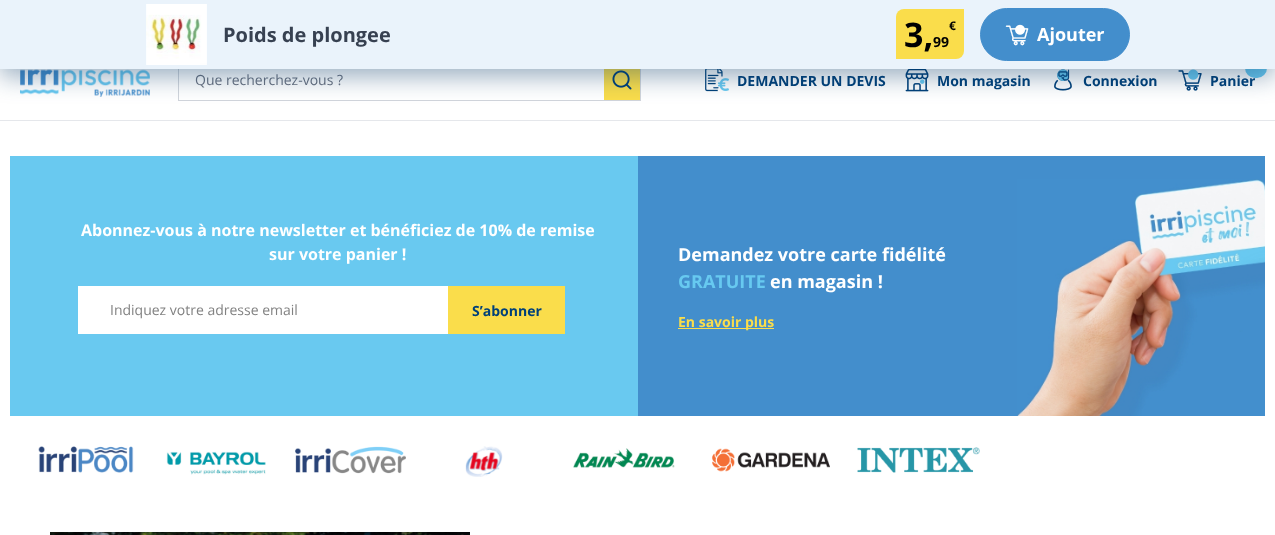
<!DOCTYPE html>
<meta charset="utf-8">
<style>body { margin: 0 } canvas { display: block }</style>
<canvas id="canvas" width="1275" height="535"></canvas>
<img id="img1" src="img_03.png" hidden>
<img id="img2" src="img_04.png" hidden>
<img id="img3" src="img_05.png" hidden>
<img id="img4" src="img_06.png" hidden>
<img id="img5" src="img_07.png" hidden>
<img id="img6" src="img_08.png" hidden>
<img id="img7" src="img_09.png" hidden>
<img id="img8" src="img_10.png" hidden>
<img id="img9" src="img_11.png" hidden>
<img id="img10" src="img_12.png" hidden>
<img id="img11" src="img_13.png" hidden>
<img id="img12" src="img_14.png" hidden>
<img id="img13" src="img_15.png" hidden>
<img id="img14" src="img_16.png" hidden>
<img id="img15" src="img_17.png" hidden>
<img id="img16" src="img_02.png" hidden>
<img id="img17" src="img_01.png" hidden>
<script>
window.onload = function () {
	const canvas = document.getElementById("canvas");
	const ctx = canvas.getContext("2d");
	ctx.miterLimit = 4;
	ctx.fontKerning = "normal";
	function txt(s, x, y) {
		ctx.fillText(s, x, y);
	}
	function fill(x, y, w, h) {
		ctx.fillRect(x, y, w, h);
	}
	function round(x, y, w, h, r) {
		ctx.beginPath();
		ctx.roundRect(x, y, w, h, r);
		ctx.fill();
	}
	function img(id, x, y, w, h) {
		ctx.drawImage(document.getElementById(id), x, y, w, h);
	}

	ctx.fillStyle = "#FFFFFF";
	fill(0, 0, 1275, 535);
	ctx.fillStyle = "#E5E7EB";
	fill(0, 120, 1275, 1);
	img("img1", 20, 69, 130, 28);
	ctx.strokeStyle = "#D1D5DB";
	ctx.strokeRect(178.5, 59.5, 462, 41);
	ctx.fillStyle = "#FADD4B";
	fill(604, 69, 36, 31);
	img("img2", 612, 70, 20, 20);
	img("img3", 705, 69, 24, 23);
	img("img4", 905, 69, 24, 23);
	img("img5", 1054, 69, 18, 22);
	img("img6", 1178, 69, 24, 22);
	ctx.fillStyle = "#69C9F0";
	fill(10, 156, 628, 260);
	ctx.fillStyle = "#FFFFFF";
	fill(78, 286, 370, 48);
	ctx.fillStyle = "#FADD4B";
	fill(448, 286, 117, 48);
	ctx.fillStyle = "#438ECC";
	fill(638, 156, 627, 260);
	ctx.fillStyle = "#FADD4B";
	fill(678, 328, 96, 1);
	img("img7", 1017, 179, 248, 237);
	img("img8", 38, 446, 96, 27);
	img("img9", 166, 451, 100, 24);
	img("img10", 295, 446, 111, 28);
	img("img11", 465, 446, 38, 31);
	img("img12", 573, 448, 102, 20);
	img("img13", 712, 448, 118, 24);
	img("img14", 857, 447, 123, 26);
	img("img15", 50, 532, 420, 3);
	ctx.font = "14px Open Sans";
	ctx.fillStyle = "#6B7280";
	txt("Que recherchez-vous ?", 195, 85);
	ctx.font = "bold 14px Open Sans";
	ctx.fillStyle = "#004079";
	txt("DEMANDER UN DEVIS", 737, 86);
	txt("Mon magasin", 937, 86);
	txt("Connexion", 1083, 86);
	txt("Panier", 1210, 86);
	ctx.fillStyle = "#69C9F0";
	round(1245, 58, 22, 20, 10);
	ctx.fillStyle = "rgba(8, 58, 103, 0.4)";
	ctx.filter = "blur(12px)";
	ctx.beginPath();
	ctx.rect(0, 8, 1275, 69);
	ctx.fill();
	ctx.filter = "none";
	ctx.fillStyle = "#EAF3FB";
	fill(0, 0, 1275, 69);
	ctx.fillStyle = "#FADD4B";
	ctx.beginPath();
	ctx.roundRect(896, 9, 68, 50, [8, 0, 8, 0]);
	ctx.fill();
	ctx.font = "bold 12px Open Sans";
	ctx.fillStyle = "#000000";
	txt("€", 949, 30);
	ctx.font = "bold 14px Open Sans";
	txt("99", 933, 47);
	ctx.font = "bold 34px Open Sans";
	txt("3,", 904, 47);
	ctx.fillStyle = "#438ECC";
	ctx.beginPath();
	ctx.roundRect(980.5, 8.5, 149, 52, 26);
	ctx.fill();
	ctx.strokeStyle = "#438ECC";
	ctx.stroke();
	img("img16", 1005, 24, 24, 22);
	ctx.font = "bold 18px Open Sans";
	ctx.fillStyle = "#FFFFFF";
	txt("Ajouter", 1037, 41);
	ctx.font = "bold 20px Open Sans";
	ctx.fillStyle = "#374151";
	txt("Poids de plongee", 223, 42);
	img("img17", 146, 4, 61, 61);
	ctx.font = "bold 16px Open Sans";
	ctx.fillStyle = "#FFFFFF";
	txt("Abonnez-vous à notre newsletter et bénéficiez de 10% de remise", 81, 236);
	txt("sur votre panier !", 269, 260);
	ctx.font = "14px Open Sans";
	ctx.fillStyle = "#828282";
	txt("Indiquez votre adresse email", 110, 315);
	ctx.font = "bold 14px Open Sans";
	ctx.fillStyle = "#004079";
	txt("S’abonner", 472, 316);
	ctx.font = "bold 18px Open Sans";
	ctx.fillStyle = "#FFFFFF";
	txt("Demandez votre carte fidélité", 678, 261);
	ctx.fillStyle = "#67C9F0";
	txt("GRATUITE", 678, 288);
	ctx.fillStyle = "#FFFFFF";
	txt("en magasin !", 770, 288);
	ctx.font = "bold 14px Open Sans";
	ctx.fillStyle = "#FADD4B";
	txt("En savoir plus", 678, 327);
};
</script>
